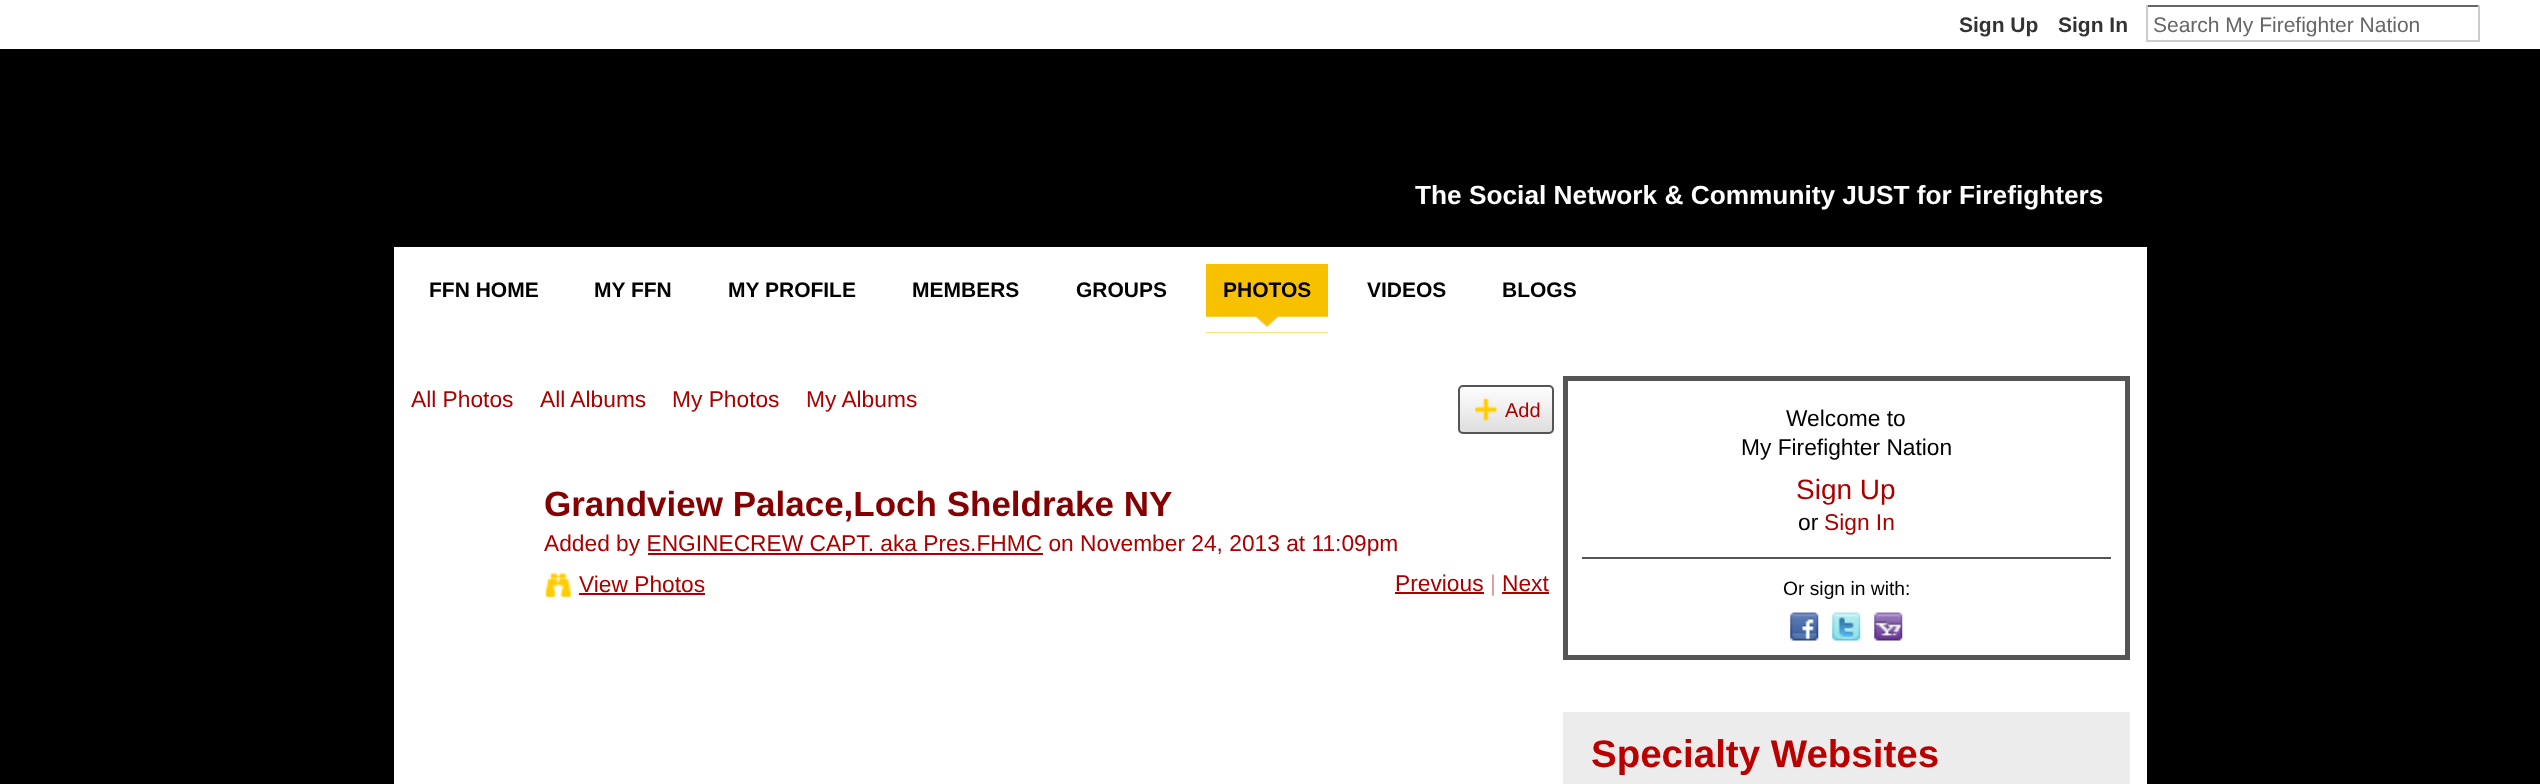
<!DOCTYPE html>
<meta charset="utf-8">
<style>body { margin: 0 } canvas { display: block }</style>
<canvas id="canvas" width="2540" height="784"></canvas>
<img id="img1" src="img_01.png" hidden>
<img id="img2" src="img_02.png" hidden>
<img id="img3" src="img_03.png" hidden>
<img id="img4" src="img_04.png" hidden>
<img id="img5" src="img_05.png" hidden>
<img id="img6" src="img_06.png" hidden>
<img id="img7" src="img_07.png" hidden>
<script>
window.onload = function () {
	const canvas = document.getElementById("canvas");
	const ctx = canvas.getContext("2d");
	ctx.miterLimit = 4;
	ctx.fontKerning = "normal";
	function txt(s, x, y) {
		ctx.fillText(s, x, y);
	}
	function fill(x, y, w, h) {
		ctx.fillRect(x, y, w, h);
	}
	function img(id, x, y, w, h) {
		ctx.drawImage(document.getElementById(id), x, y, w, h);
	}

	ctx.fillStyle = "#000000";
	fill(0, 0, 2540, 784);
	ctx.fillStyle = "#FFFFFF";
	fill(0, 0, 2540, 49);
	ctx.fillStyle = "#666666";
	fill(2146, 5, 334, 2);
	ctx.fillStyle = "#CCCCCC";
	fill(2478, 5, 2, 37);
	fill(2146, 40, 334, 2);
	fill(2146, 5, 2, 37);
	ctx.fillStyle = "#FFFFFF";
	fill(394, 247, 1753, 537);
	ctx.fillStyle = "#F8C100";
	fill(1206, 264, 122, 69);
	img("img1", 1206, 316, 122, 17);
	img("img2", 1458, 388, 96, 46);
	ctx.beginPath();
	ctx.roundRect(1459, 386, 94, 47, 4);
	ctx.strokeStyle = "#555555";
	ctx.lineWidth = 2;
	ctx.stroke();
	img("img3", 1474, 398, 23, 23);
	ctx.fillStyle = "#AA0000";
	fill(648, 553, 395, 2);
	img("img4", 545, 572, 26, 25);
	fill(579, 593, 126, 2);
	fill(1395, 592, 89, 2);
	fill(1502, 592, 47, 2);
	ctx.lineWidth = 5;
	ctx.strokeRect(1565.5, 378.5, 562, 279);
	ctx.fillStyle = "#555555";
	fill(1582, 557, 529, 2);
	img("img5", 1790, 612, 29, 29);
	img("img6", 1832, 612, 29, 29);
	img("img7", 1874, 612, 29, 29);
	ctx.fillStyle = "#ECECEC";
	fill(1563, 712, 567, 72);
	ctx.font = "bold 21px Liberation Sans";
	ctx.fillStyle = "#333333";
	txt("Sign Up", 1959, 32);
	txt("Sign In", 2058, 32);
	ctx.font = "21px Liberation Sans";
	ctx.fillStyle = "#666666";
	txt("Search My Firefighter Nation", 2153, 32);
	ctx.font = "bold 26.25px Liberation Sans";
	ctx.fillStyle = "#FFFFFF";
	txt("The Social Network & Community JUST for Firefighters", 1415, 204);
	ctx.font = "bold 21px Liberation Sans";
	ctx.fillStyle = "#010101";
	txt("FFN HOME", 429, 297);
	txt("MY FFN", 594, 297);
	txt("MY PROFILE", 728, 297);
	txt("MEMBERS", 912, 297);
	txt("GROUPS", 1076, 297);
	txt("PHOTOS", 1223, 297);
	txt("VIDEOS", 1367, 297);
	txt("BLOGS", 1502, 297);
	ctx.font = "22.75px Liberation Sans";
	ctx.fillStyle = "#AA0000";
	txt("All Photos", 411, 407);
	txt("All Albums", 540, 407);
	txt("My Photos", 672, 407);
	txt("My Albums", 806, 407);
	ctx.font = "20px Liberation Sans";
	txt("Add", 1505, 417);
	ctx.font = "bold 35px Liberation Sans";
	ctx.fillStyle = "#850000";
	txt("Grandview Palace,Loch Sheldrake NY", 544, 516);
	ctx.font = "22.75px Liberation Sans";
	ctx.fillStyle = "#AA0000";
	txt("Added by ENGINECREW CAPT. aka Pres.FHMC on November 24, 2013 at 11:09pm", 544, 551);
	txt("View Photos", 579, 592);
	txt("Previous", 1395, 591);
	ctx.fillStyle = "#DD9999";
	txt("|", 1490, 591);
	ctx.fillStyle = "#AA0000";
	txt("Next", 1502, 591);
	ctx.fillStyle = "#010101";
	txt("Welcome to", 1786, 426);
	txt("My Firefighter Nation", 1741, 455);
	ctx.font = "28px Liberation Sans";
	ctx.fillStyle = "#AA0000";
	txt("Sign Up", 1796, 499);
	ctx.font = "22.75px Liberation Sans";
	ctx.fillStyle = "#010101";
	txt("or", 1798, 530);
	ctx.fillStyle = "#AA0000";
	txt("Sign In", 1824, 530);
	ctx.font = "19.25px Liberation Sans";
	ctx.fillStyle = "#010101";
	txt("Or sign in with:", 1783, 595);
	ctx.font = "bold 38.5px Liberation Sans";
	ctx.fillStyle = "#BB0000";
	txt("Specialty Websites", 1591, 767);
};
</script>
